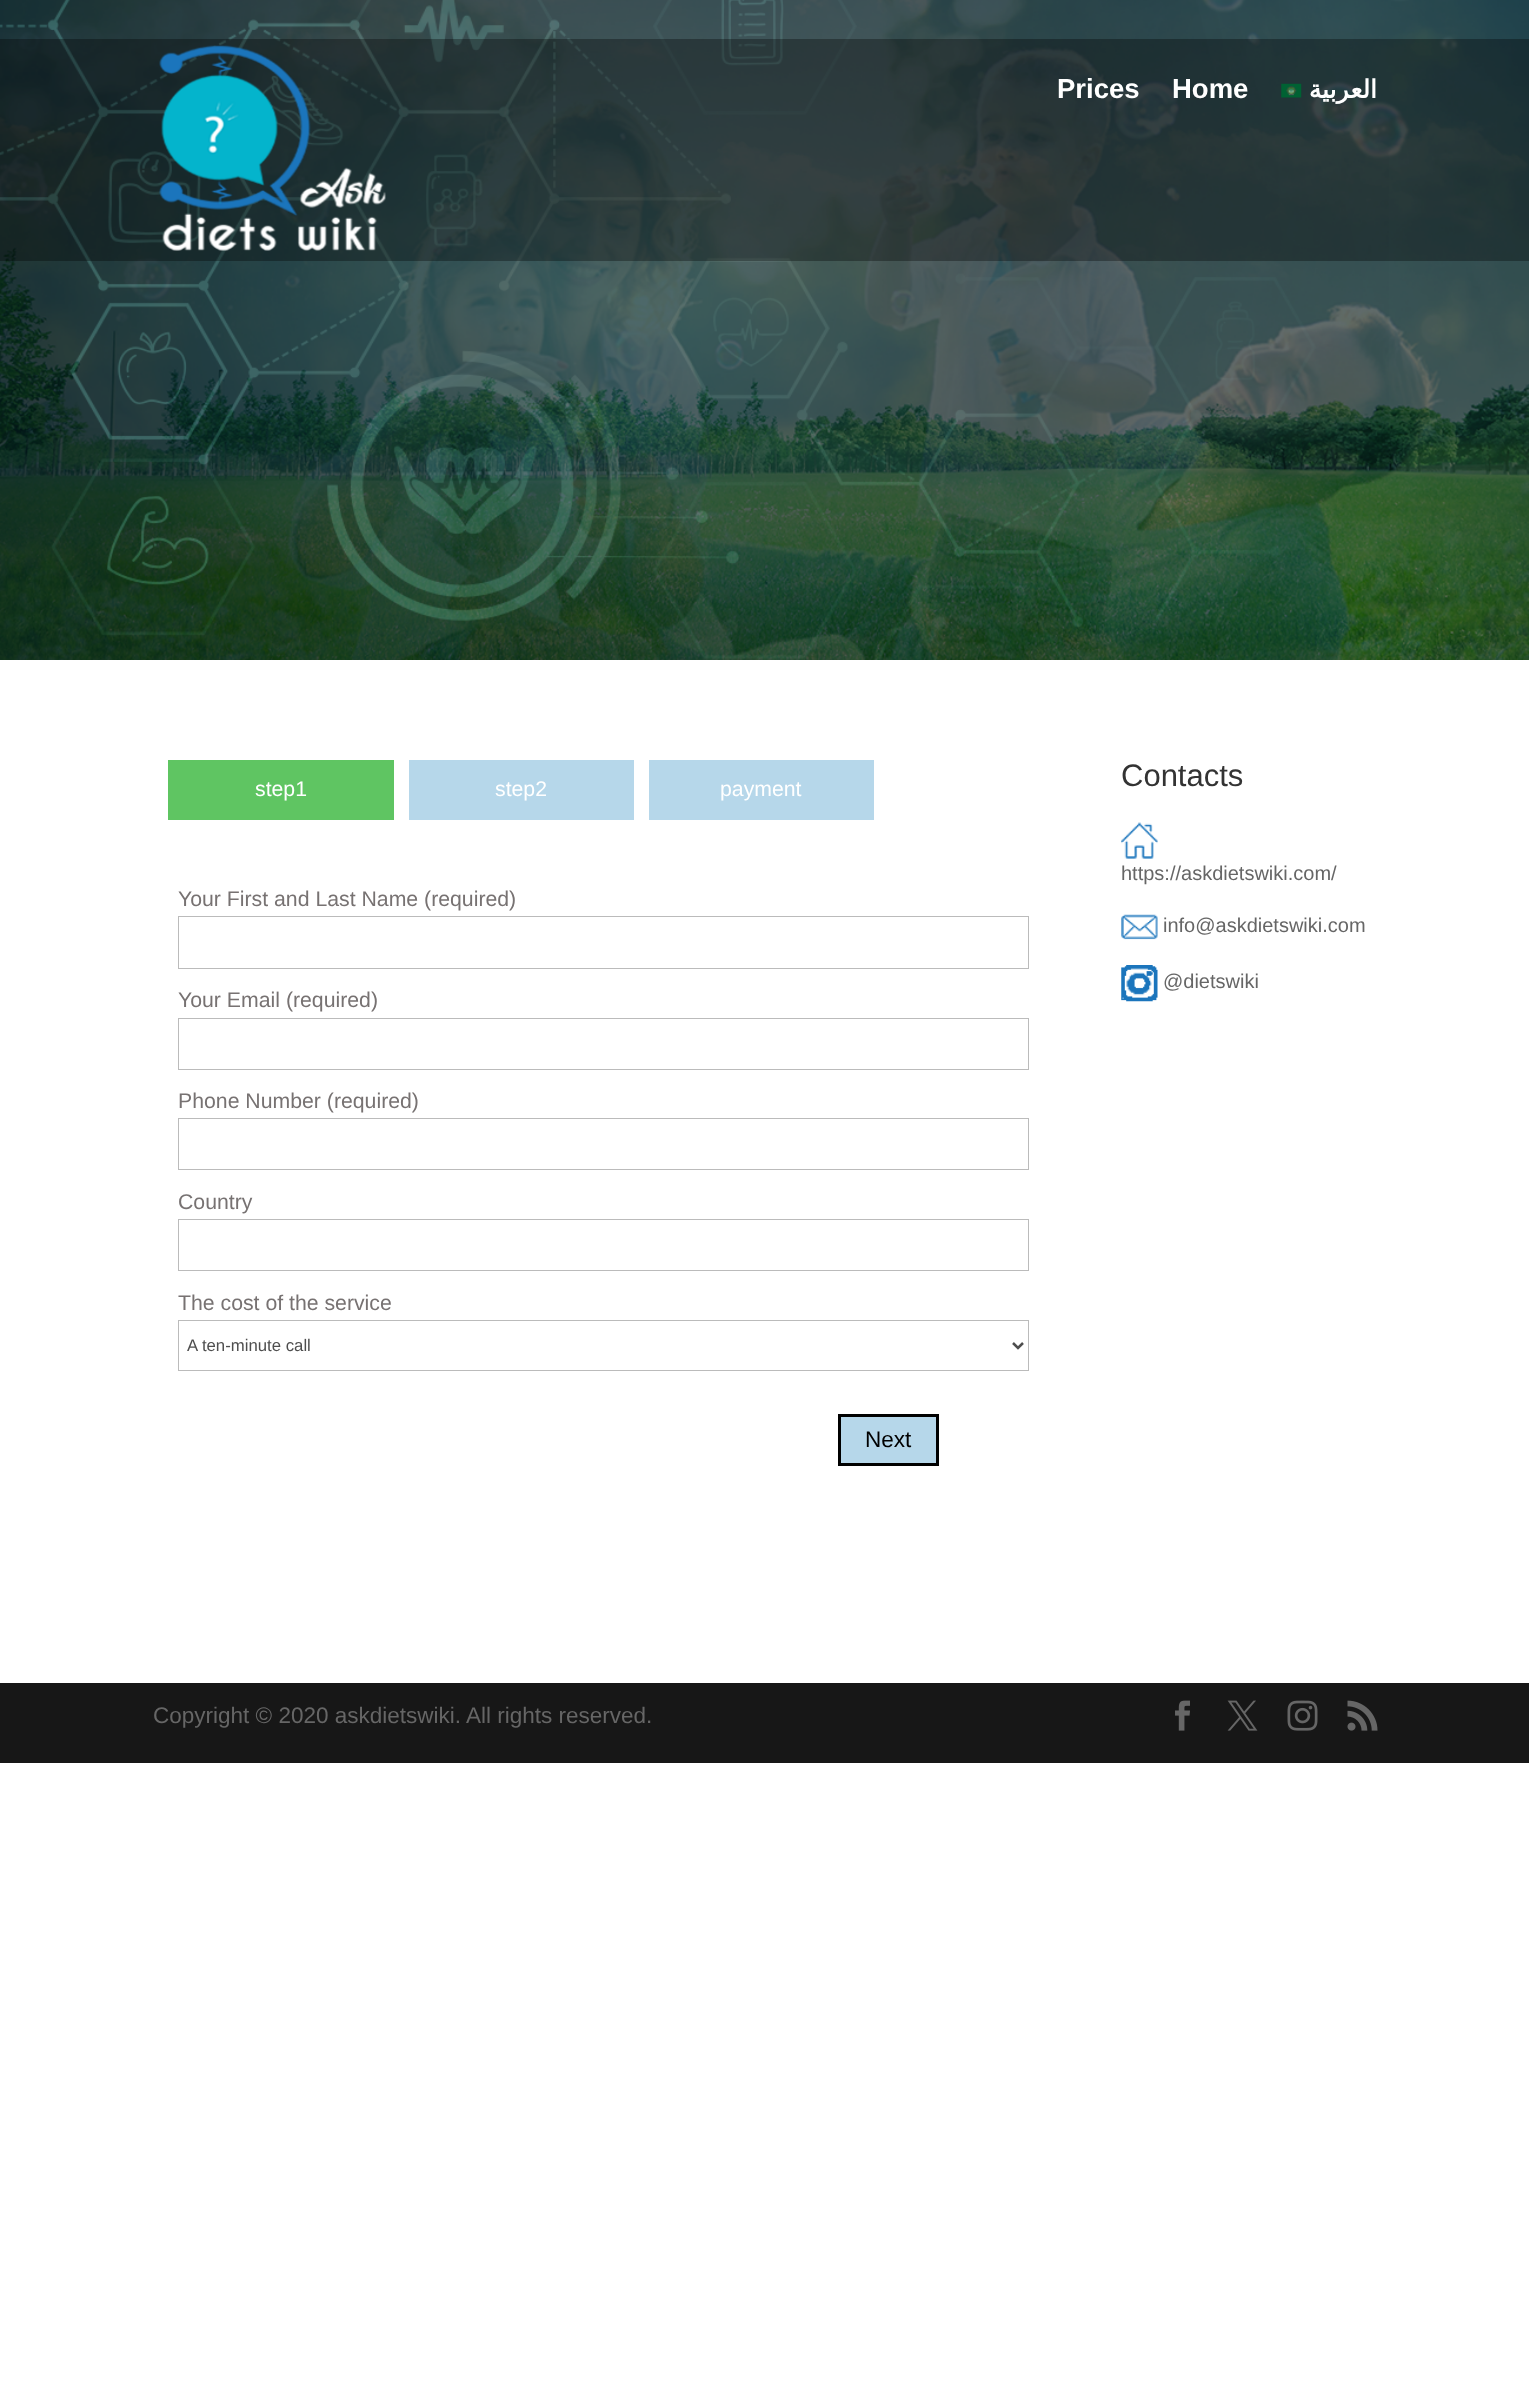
<!DOCTYPE html>
<meta charset="utf-8">
<style>body { margin: 0 } canvas { display: block }</style>
<canvas id="canvas" width="1529" height="2398"></canvas>
<img id="img1" src="img_03.png" hidden>
<img id="img2" src="img_01.png" hidden>
<img id="img3" src="img_02.png" hidden>
<img id="img4" src="img_04.png" hidden>
<img id="img5" src="img_05.png" hidden>
<img id="img6" src="img_06.png" hidden>
<img id="img7" src="img_07.png" hidden>
<img id="img8" src="img_08.png" hidden>
<img id="img9" src="img_09.png" hidden>
<img id="img10" src="img_10.png" hidden>
<script>
window.onload = function () {
	const canvas = document.getElementById("canvas");
	const ctx = canvas.getContext("2d");
	ctx.miterLimit = 4;
	ctx.fontKerning = "normal";
	function txt(s, x, y) {
		ctx.fillText(s, x, y);
	}
	function fill(x, y, w, h) {
		ctx.fillRect(x, y, w, h);
	}
	function img(id, x, y, w, h) {
		ctx.drawImage(document.getElementById(id), x, y, w, h);
	}

	ctx.fillStyle = "#FFFFFF";
	fill(0, 0, 1529, 2398);
	img("img1", 0, 0, 1529, 660);
	ctx.fillStyle = "rgba(0, 0, 0, 0.32)";
	fill(0, 39, 1529, 222);
	img("img2", 159, 45, 227, 206);
	img("img3", 1281, 83, 21, 15);
	ctx.fillStyle = "#5FC562";
	fill(168, 760, 226, 60);
	ctx.fillStyle = "#B6D7EA";
	fill(409, 760, 225, 60);
	fill(649, 760, 225, 60);
	ctx.strokeStyle = "#BBBBBB";
	ctx.strokeRect(178.5, 916.5, 850, 52);
	ctx.strokeRect(178.5, 1018.5, 850, 51);
	ctx.strokeRect(178.5, 1118.5, 850, 51);
	ctx.strokeRect(178.5, 1219.5, 850, 51);
	ctx.strokeRect(178.5, 1320.5, 850, 50);
	ctx.beginPath();
	ctx.moveTo(1013, 1343);
	ctx.lineTo(1018, 1348);
	ctx.lineTo(1023, 1343);
	ctx.strokeStyle = "#4E4E4E";
	ctx.lineWidth = 2.5;
	ctx.stroke();
	ctx.beginPath();
	ctx.rect(839.5, 1415.5, 98, 49);
	ctx.fill();
	ctx.strokeStyle = "#000000";
	ctx.lineWidth = 3;
	ctx.stroke();
	img("img4", 1121, 822, 37, 37);
	img("img5", 1121, 914, 37, 26);
	img("img6", 1121, 965, 37, 37);
	ctx.fillStyle = "#171717";
	fill(0, 1683, 1529, 80);
	img("img7", 1175, 1700, 15, 31);
	img("img8", 1227, 1700, 31, 31);
	img("img9", 1287, 1700, 31, 31);
	img("img10", 1347, 1700, 31, 31);
	ctx.font = "bold 27.5px Liberation Sans";
	ctx.fillStyle = "#FFFFFF";
	txt("Prices", 1057, 98);
	txt("Home", 1172, 98);
	ctx.direction = "rtl";
	ctx.font = "bold 25px DejaVu Sans";
	txt("العربية", 1377, 98);
	ctx.direction = "ltr";
	ctx.font = "21.25px Liberation Sans";
	txt("step1", 255, 796);
	txt("step2", 495, 796);
	txt("payment", 720, 796);
	ctx.fillStyle = "#777272";
	txt("Your First and Last Name (required)", 178, 906);
	txt("Your Email (required)", 178, 1007);
	txt("Phone Number (required)", 178, 1108);
	txt("Country", 178, 1209);
	txt("The cost of the service", 178, 1310);
	ctx.font = "16.75px Liberation Sans";
	ctx.fillStyle = "#4E4E4E";
	txt("A ten-minute call", 187, 1351);
	ctx.font = "22.5px Liberation Sans";
	ctx.fillStyle = "#000000";
	txt("Next", 865, 1447);
	ctx.font = "31px Liberation Sans";
	ctx.fillStyle = "#333333";
	txt("Contacts", 1121, 786);
	ctx.font = "20px Liberation Sans";
	ctx.fillStyle = "#666666";
	txt("https://askdietswiki.com/", 1121, 880);
	txt("info@askdietswiki.com", 1163, 932);
	txt("@dietswiki", 1163, 988);
	ctx.font = "22.5px Liberation Sans";
	txt("Copyright © 2020 askdietswiki. All rights reserved.", 153, 1723);
};
</script>
